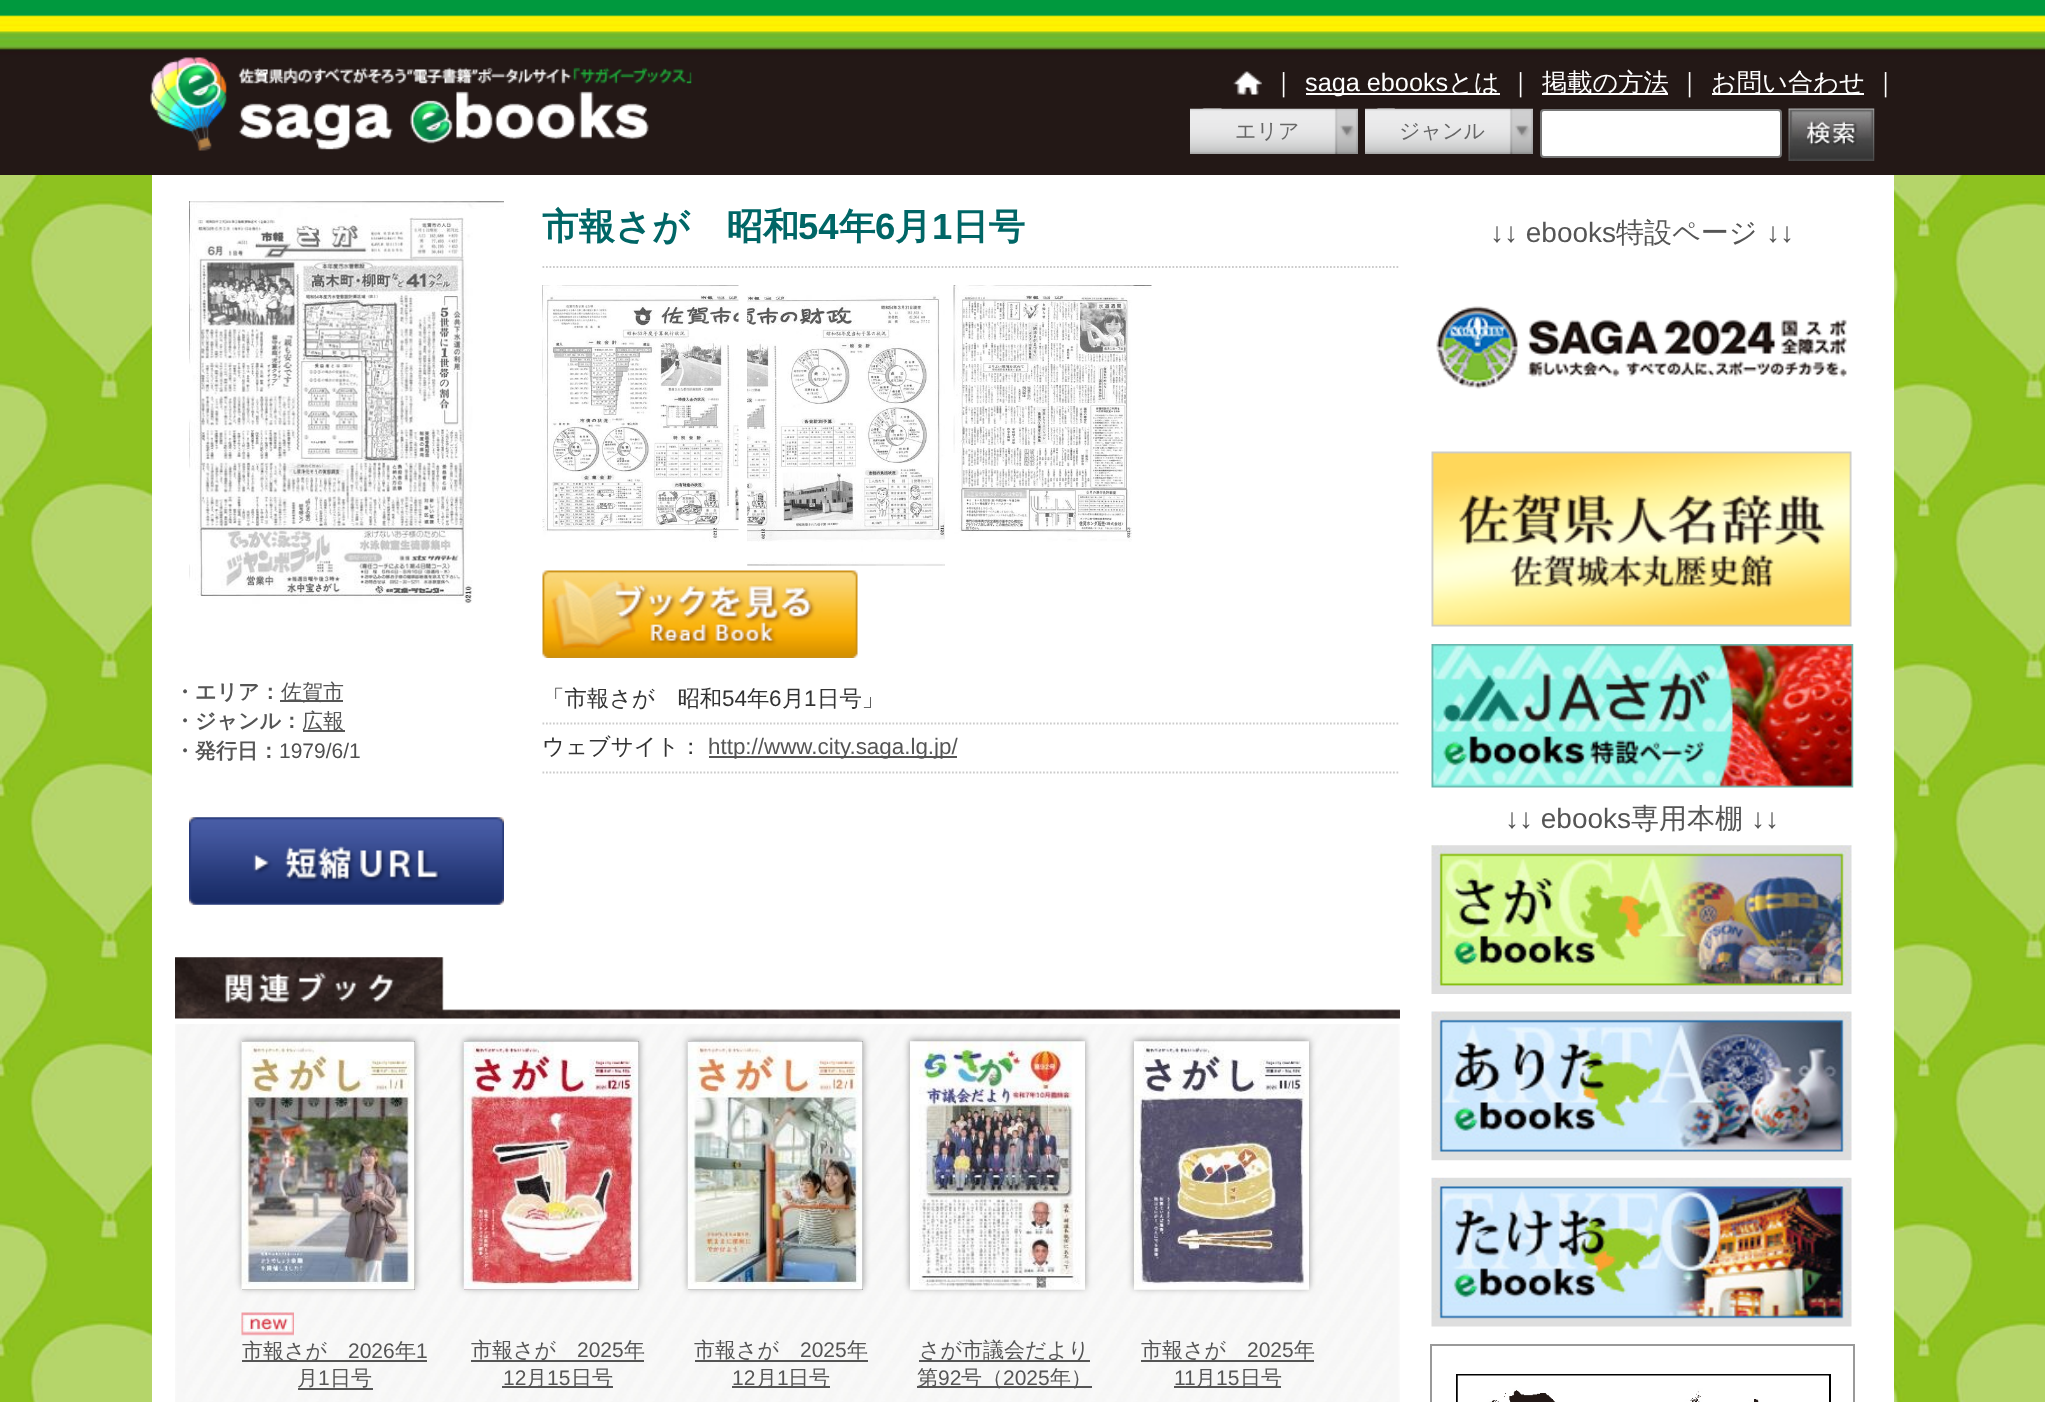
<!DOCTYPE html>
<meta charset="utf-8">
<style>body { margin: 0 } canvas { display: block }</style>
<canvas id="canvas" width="2045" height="1402"></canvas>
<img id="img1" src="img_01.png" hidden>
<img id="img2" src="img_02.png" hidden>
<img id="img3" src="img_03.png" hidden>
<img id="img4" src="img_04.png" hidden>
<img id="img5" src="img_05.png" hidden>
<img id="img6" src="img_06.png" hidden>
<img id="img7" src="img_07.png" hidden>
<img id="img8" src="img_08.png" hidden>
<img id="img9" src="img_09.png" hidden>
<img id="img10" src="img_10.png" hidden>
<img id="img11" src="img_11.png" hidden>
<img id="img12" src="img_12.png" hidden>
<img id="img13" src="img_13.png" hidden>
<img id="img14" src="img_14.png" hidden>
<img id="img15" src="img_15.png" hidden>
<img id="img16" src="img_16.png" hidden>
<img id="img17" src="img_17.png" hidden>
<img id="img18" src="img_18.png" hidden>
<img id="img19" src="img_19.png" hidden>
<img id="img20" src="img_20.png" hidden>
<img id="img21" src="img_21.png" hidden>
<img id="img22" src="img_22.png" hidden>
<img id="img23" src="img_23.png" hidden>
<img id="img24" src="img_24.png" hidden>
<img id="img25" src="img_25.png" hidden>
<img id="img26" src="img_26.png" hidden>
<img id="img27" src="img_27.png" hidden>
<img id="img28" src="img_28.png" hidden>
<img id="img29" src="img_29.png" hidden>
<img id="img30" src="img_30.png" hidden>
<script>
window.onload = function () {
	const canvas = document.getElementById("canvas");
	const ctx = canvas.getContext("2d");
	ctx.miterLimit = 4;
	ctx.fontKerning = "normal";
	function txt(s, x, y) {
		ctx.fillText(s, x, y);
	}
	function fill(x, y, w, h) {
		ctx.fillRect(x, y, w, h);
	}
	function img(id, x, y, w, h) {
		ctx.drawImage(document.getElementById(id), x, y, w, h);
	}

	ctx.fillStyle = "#FFFFFF";
	fill(0, 0, 2045, 1402);
	img("img1", 0, 175, 2045, 1227);
	img("img2", 0, 0, 2045, 175);
	img("img3", 150, 57, 542, 94);
	img("img4", 1233, 71, 29, 24);
	fill(1306, 93, 194, 2);
	fill(1542, 93, 126, 2);
	fill(1712, 93, 152, 2);
	img("img5", 1202, 108, 20, 1);
	img("img6", 1190, 108, 168, 46);
	img("img7", 1376, 108, 19, 1);
	img("img8", 1365, 108, 168, 46);
	ctx.beginPath();
	ctx.roundRect(1541, 110, 240, 47, 3);
	ctx.fill();
	ctx.strokeStyle = "#767676";
	ctx.lineWidth = 2;
	ctx.stroke();
	img("img9", 1788, 108, 87, 53);
	fill(152, 175, 1742, 1227);
	img("img10", 189, 201, 315, 403);
	ctx.fillStyle = "#555555";
	fill(280, 700, 63, 2);
	fill(303, 730, 42, 2);
	img("img11", 189, 817, 315, 88);
	ctx.beginPath();
	ctx.moveTo(542.5, 267);
	ctx.lineTo(1400, 267);
	ctx.strokeStyle = "#CCCCCC";
	ctx.lineWidth = 1.8;
	ctx.setLineDash([1.75, 1.75]);
	ctx.stroke();
	img("img12", 542, 285, 197, 257);
	img("img13", 747, 295, 198, 271);
	img("img14", 953, 285, 199, 257);
	img("img15", 542, 570, 316, 88);
	ctx.beginPath();
	ctx.moveTo(542.5, 723.5);
	ctx.lineTo(1400, 723.5);
	ctx.stroke();
	ctx.beginPath();
	ctx.moveTo(542.5, 772.5);
	ctx.lineTo(1400, 772.5);
	ctx.stroke();
	fill(709, 756, 248, 2);
	img("img16", 175, 957, 1225, 62);
	img("img17", 175, 1024, 1225, 378);
	ctx.fillStyle = "rgba(0, 0, 0, 0.4)";
	ctx.filter = "blur(3.5px)";
	ctx.beginPath();
	ctx.rect(242, 1040, 173, 248);
	ctx.fill();
	ctx.filter = "none";
	ctx.fillStyle = "#333333";
	fill(242, 1041, 173, 249);
	img("img18", 241, 1041, 174, 249);
	img("img19", 241, 1312, 53, 24);
	ctx.fillStyle = "#555555";
	fill(242, 1360, 185, 2);
	fill(298, 1388, 75, 2);
	ctx.fillStyle = "rgba(0, 0, 0, 0.4)";
	ctx.filter = "blur(3.5px)";
	ctx.beginPath();
	ctx.rect(464, 1040, 175, 248);
	ctx.fill();
	ctx.filter = "none";
	ctx.fillStyle = "#333333";
	fill(464, 1041, 175, 249);
	img("img20", 463, 1041, 176, 249);
	ctx.fillStyle = "#555555";
	fill(471, 1360, 173, 2);
	fill(502, 1386, 111, 2);
	ctx.fillStyle = "rgba(0, 0, 0, 0.4)";
	ctx.filter = "blur(3.5px)";
	ctx.beginPath();
	ctx.rect(688, 1040, 175, 248);
	ctx.fill();
	ctx.filter = "none";
	ctx.fillStyle = "#333333";
	fill(688, 1041, 175, 249);
	img("img21", 687, 1041, 176, 249);
	ctx.fillStyle = "#555555";
	fill(695, 1360, 173, 2);
	fill(732, 1386, 98, 2);
	ctx.fillStyle = "rgba(0, 0, 0, 0.4)";
	ctx.filter = "blur(3.5px)";
	ctx.beginPath();
	ctx.rect(910, 1040, 175, 248);
	ctx.fill();
	ctx.filter = "none";
	img("img22", 910, 1041, 175, 249);
	ctx.fillStyle = "#555555";
	fill(919, 1360, 171, 2);
	fill(917, 1386, 175, 2);
	ctx.fillStyle = "rgba(0, 0, 0, 0.4)";
	ctx.filter = "blur(3.5px)";
	ctx.beginPath();
	ctx.rect(1134, 1040, 175, 248);
	ctx.fill();
	ctx.filter = "none";
	img("img23", 1134, 1041, 175, 249);
	ctx.fillStyle = "#555555";
	fill(1141, 1360, 173, 2);
	fill(1174, 1386, 107, 2);
	img("img24", 1436, 306, 411, 83);
	img("img25", 1431, 451, 421, 176);
	img("img26", 1431, 644, 423, 144);
	img("img27", 1431, 845, 421, 149);
	img("img28", 1431, 1011, 421, 150);
	img("img29", 1431, 1177, 421, 150);
	ctx.strokeStyle = "#999999";
	ctx.lineWidth = 2;
	ctx.setLineDash([]);
	ctx.strokeRect(1431, 1345, 423, 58);
	ctx.strokeStyle = "#000000";
	ctx.strokeRect(1457, 1375, 373, 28);
	img("img30", 1457, 1375, 372, 27);
	ctx.font = "500 25.25px WenQuanYi Zen Hei";
	ctx.fillStyle = "#FFFFFF";
	txt("｜", 1271, 91);
	ctx.font = "25.25px Liberation Sans";
	txt("saga ebooks", 1305, 91);
	ctx.font = "500 25.25px WenQuanYi Zen Hei";
	txt("とは", 1448, 91);
	txt("｜", 1508, 91);
	txt("掲載の方法", 1542, 91);
	txt("｜", 1677, 91);
	txt("お問い合わせ", 1711, 91);
	txt("｜", 1873, 91);
	ctx.font = "500 21px WenQuanYi Zen Hei";
	ctx.fillStyle = "#666666";
	txt("エリア", 1235, 138);
	txt("ジャンル", 1399, 138);
	ctx.font = "bold 21px WenQuanYi Zen Hei";
	ctx.fillStyle = "#555555";
	txt("・エリア：", 174, 699);
	ctx.font = "500 21px WenQuanYi Zen Hei";
	txt("佐賀市", 281, 699);
	ctx.font = "bold 21px WenQuanYi Zen Hei";
	txt("・ジャンル：", 174, 728);
	ctx.font = "500 21px WenQuanYi Zen Hei";
	txt("広報", 302, 728);
	ctx.font = "bold 21px WenQuanYi Zen Hei";
	txt("・発行日：", 174, 758);
	ctx.font = "21px Liberation Sans";
	ctx.fillStyle = "#4F4F4F";
	txt("1979/6/1", 279, 758);
	ctx.font = "bold 36.5px WenQuanYi Zen Hei";
	ctx.fillStyle = "#006666";
	txt("市報さが　昭和", 542, 239);
	ctx.font = "bold 36.5px Liberation Sans";
	txt("54", 798, 239);
	ctx.font = "bold 36.5px WenQuanYi Zen Hei";
	txt("年", 839, 239);
	ctx.font = "bold 36.5px Liberation Sans";
	txt("6", 875, 239);
	ctx.font = "bold 36.5px WenQuanYi Zen Hei";
	txt("月", 895, 239);
	ctx.font = "bold 36.5px Liberation Sans";
	txt("1", 932, 239);
	ctx.font = "bold 36.5px WenQuanYi Zen Hei";
	txt("日号", 952, 239);
	ctx.font = "500 22.4px WenQuanYi Zen Hei";
	ctx.fillStyle = "#333333";
	txt("「市報さが　昭和", 542, 706);
	ctx.font = "22.4px Liberation Sans";
	txt("54", 722, 706);
	ctx.font = "500 22.4px WenQuanYi Zen Hei";
	txt("年", 747, 706);
	ctx.font = "22.4px Liberation Sans";
	txt("6", 769, 706);
	ctx.font = "500 22.4px WenQuanYi Zen Hei";
	txt("月", 782, 706);
	ctx.font = "22.4px Liberation Sans";
	txt("1", 804, 706);
	ctx.font = "500 22.4px WenQuanYi Zen Hei";
	txt("日号」", 817, 706);
	txt("ウェブサイト：", 542, 754);
	ctx.font = "22.4px Liberation Sans";
	ctx.fillStyle = "#555555";
	txt("http://www.city.saga.lg.jp/", 708, 754);
	ctx.font = "500 21px WenQuanYi Zen Hei";
	txt("市報さが", 242, 1358);
	ctx.font = "21px Liberation Sans";
	txt("2026", 348, 1358);
	ctx.font = "500 21px WenQuanYi Zen Hei";
	txt("年", 395, 1358);
	ctx.font = "21px Liberation Sans";
	txt("1", 416, 1358);
	ctx.font = "500 21px WenQuanYi Zen Hei";
	txt("月", 297, 1385);
	ctx.font = "21px Liberation Sans";
	txt("1", 318, 1385);
	ctx.font = "500 21px WenQuanYi Zen Hei";
	txt("日号", 330, 1385);
	txt("市報さが", 471, 1357);
	ctx.font = "21px Liberation Sans";
	txt("2025", 577, 1357);
	ctx.font = "500 21px WenQuanYi Zen Hei";
	txt("年", 624, 1357);
	ctx.font = "21px Liberation Sans";
	txt("12", 503, 1385);
	ctx.font = "500 21px WenQuanYi Zen Hei";
	txt("月", 526, 1385);
	ctx.font = "21px Liberation Sans";
	txt("15", 547, 1385);
	ctx.font = "500 21px WenQuanYi Zen Hei";
	txt("日号", 571, 1385);
	txt("市報さが", 694, 1357);
	ctx.font = "21px Liberation Sans";
	txt("2025", 800, 1357);
	ctx.font = "500 21px WenQuanYi Zen Hei";
	txt("年", 847, 1357);
	ctx.font = "21px Liberation Sans";
	txt("12", 732, 1385);
	ctx.font = "500 21px WenQuanYi Zen Hei";
	txt("月", 756, 1385);
	ctx.font = "21px Liberation Sans";
	txt("1", 777, 1385);
	ctx.font = "500 21px WenQuanYi Zen Hei";
	txt("日号", 788, 1385);
	txt("さが市議会だより", 919, 1357);
	txt("第", 917, 1385);
	ctx.font = "21px Liberation Sans";
	txt("92", 938, 1385);
	ctx.font = "500 21px WenQuanYi Zen Hei";
	txt("号（", 961, 1385);
	ctx.font = "21px Liberation Sans";
	txt("2025", 1003, 1385);
	ctx.font = "500 21px WenQuanYi Zen Hei";
	txt("年）", 1050, 1385);
	txt("市報さが", 1141, 1357);
	ctx.font = "21px Liberation Sans";
	txt("2025", 1247, 1357);
	ctx.font = "500 21px WenQuanYi Zen Hei";
	txt("年", 1294, 1357);
	ctx.font = "21px Liberation Sans";
	txt("11", 1174, 1385);
	ctx.font = "500 21px WenQuanYi Zen Hei";
	txt("月", 1195, 1385);
	ctx.font = "21px Liberation Sans";
	txt("15", 1216, 1385);
	ctx.font = "500 21px WenQuanYi Zen Hei";
	txt("日号", 1240, 1385);
	ctx.font = "28px Liberation Sans";
	txt("↓↓ ebooks", 1490, 242);
	ctx.font = "500 28px WenQuanYi Zen Hei";
	txt("特設ページ", 1616, 242);
	ctx.font = "28px Liberation Sans";
	txt("↓↓", 1766, 242);
	txt("↓↓ ebooks", 1505, 828);
	ctx.font = "500 28px WenQuanYi Zen Hei";
	txt("専用本棚", 1631, 828);
	ctx.font = "28px Liberation Sans";
	txt("↓↓", 1751, 828);
};
</script>
